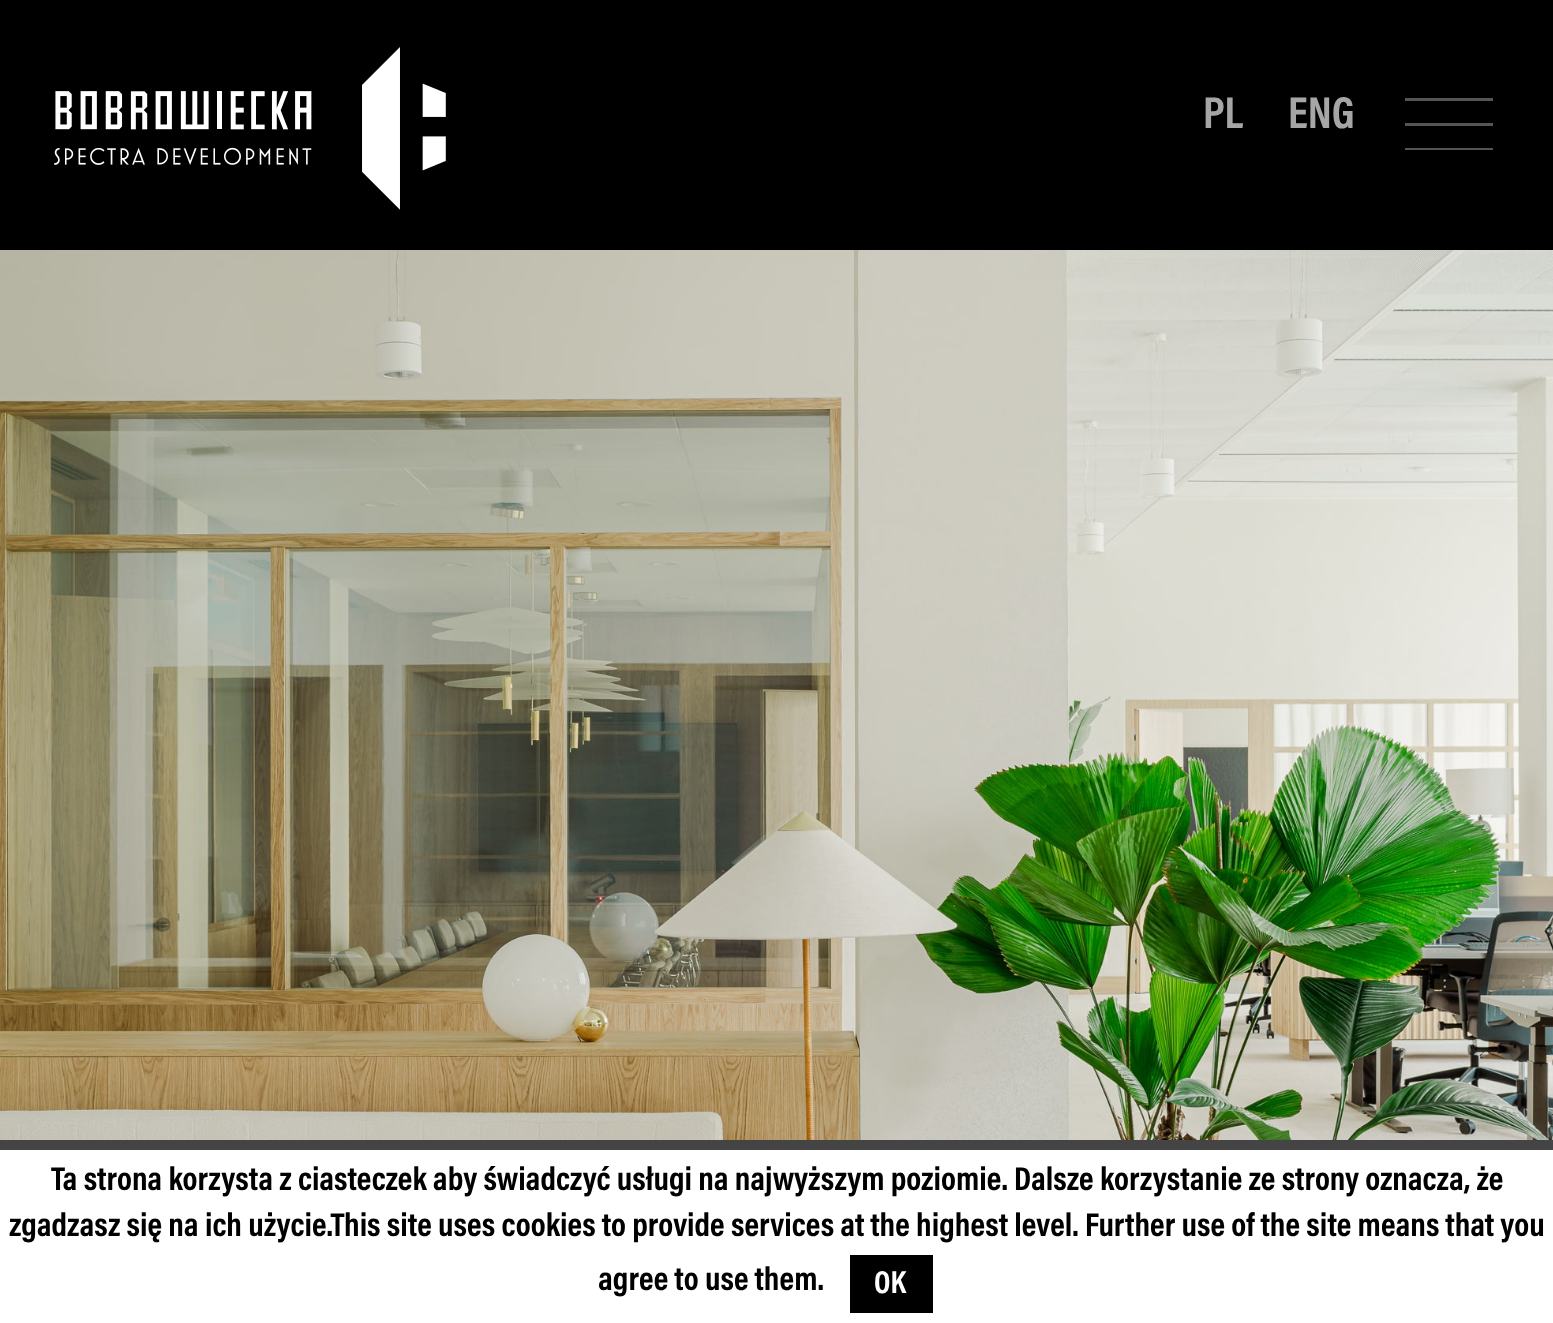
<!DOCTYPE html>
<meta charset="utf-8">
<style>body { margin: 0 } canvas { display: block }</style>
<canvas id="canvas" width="1553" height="1323"></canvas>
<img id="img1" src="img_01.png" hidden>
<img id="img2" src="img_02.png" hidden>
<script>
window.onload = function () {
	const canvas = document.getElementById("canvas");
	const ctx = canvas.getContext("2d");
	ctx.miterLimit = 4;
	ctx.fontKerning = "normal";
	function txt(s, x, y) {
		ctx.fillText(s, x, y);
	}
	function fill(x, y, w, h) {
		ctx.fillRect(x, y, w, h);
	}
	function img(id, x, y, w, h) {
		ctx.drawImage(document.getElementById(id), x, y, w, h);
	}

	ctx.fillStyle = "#FFFFFF";
	fill(0, 0, 1553, 1323);
	ctx.fillStyle = "#000000";
	fill(0, 0, 1553, 250);
	img("img1", 54, 47, 392, 163);
	ctx.fillStyle = "#555555";
	fill(1405, 123, 88, 3);
	fill(1405, 98, 88, 3);
	fill(1405, 148, 88, 2);
	img("img2", 0, 250, 1553, 890);
	ctx.fillStyle = "#444444";
	fill(0, 1140, 1553, 10);
	ctx.fillStyle = "#000000";
	fill(850, 1255, 83, 58);
	ctx.font = "bold 45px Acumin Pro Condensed";
	ctx.fillStyle = "#A6A6A6";
	txt("PL", 1203, 128);
	txt("ENG", 1288, 128);
	ctx.font = "bold 33.35px Acumin Pro Condensed";
	ctx.fillStyle = "#000000";
	txt("Ta strona korzysta z ciasteczek aby świadczyć usługi na najwyższym poziomie. Dalsze korzystanie ze strony oznacza, że", 51, 1190);
	txt("zgadzasz się na ich użycie.This site uses cookies to provide services at the highest level. Further use of the site means that you", 9, 1236);
	txt("agree to use them.", 598, 1290);
	ctx.font = "bold 32px Acumin Pro Condensed";
	ctx.fillStyle = "#FFFFFF";
	txt("OK", 874, 1293);
};
</script>
